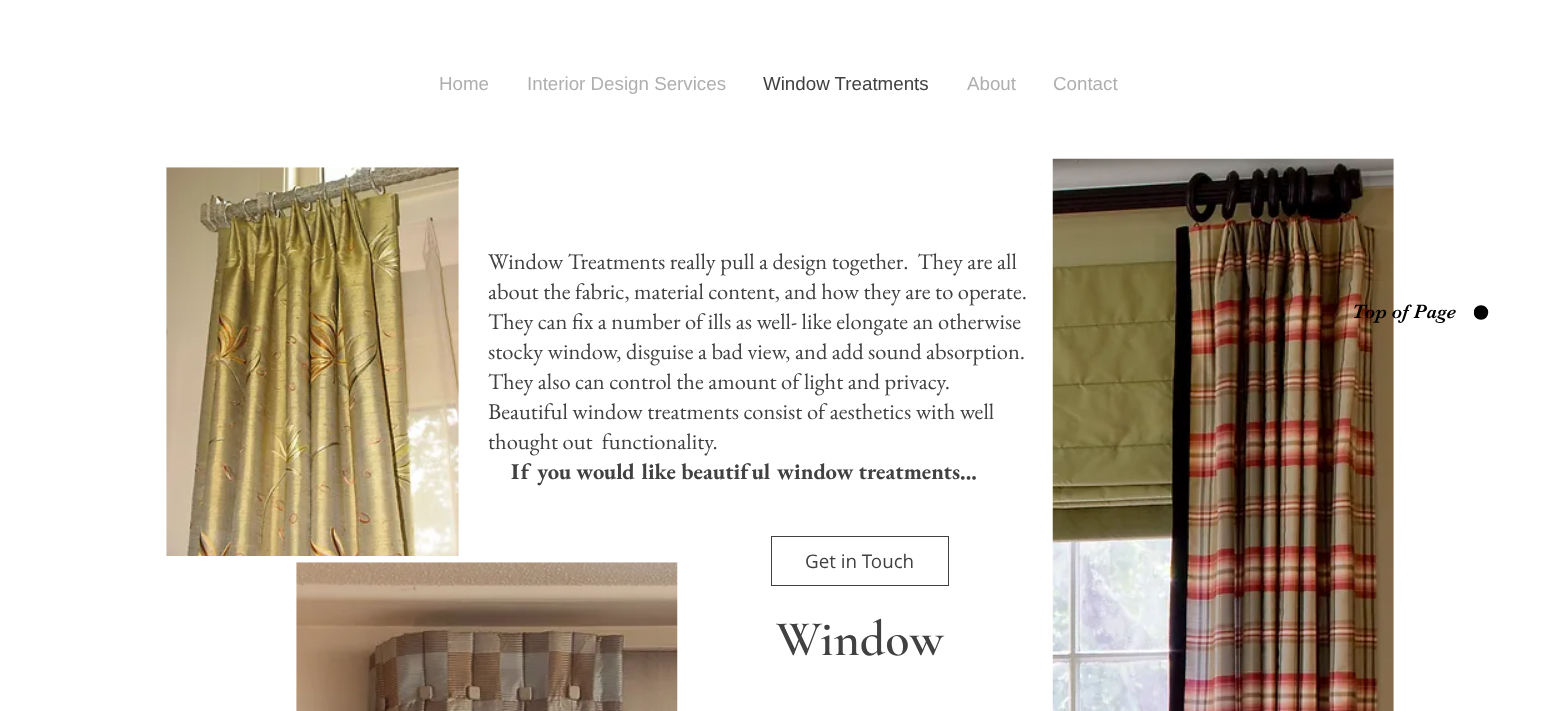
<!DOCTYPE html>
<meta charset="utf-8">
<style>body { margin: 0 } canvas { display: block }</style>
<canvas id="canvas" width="1557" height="711"></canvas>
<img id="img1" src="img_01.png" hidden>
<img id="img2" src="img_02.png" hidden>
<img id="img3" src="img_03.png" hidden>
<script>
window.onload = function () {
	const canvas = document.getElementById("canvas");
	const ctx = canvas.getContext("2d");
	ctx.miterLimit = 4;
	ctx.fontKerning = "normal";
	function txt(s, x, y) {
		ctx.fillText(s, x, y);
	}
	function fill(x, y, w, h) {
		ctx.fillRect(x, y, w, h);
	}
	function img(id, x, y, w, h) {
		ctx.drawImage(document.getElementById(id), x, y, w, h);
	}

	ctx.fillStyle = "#FFFFFF";
	fill(0, 0, 1557, 711);
	img("img1", 166, 167, 293, 389);
	img("img2", 1052, 158, 342, 553);
	img("img3", 296, 562, 382, 149);
	ctx.strokeStyle = "#414141";
	ctx.strokeRect(771.5, 536.5, 177, 49);
	ctx.fillStyle = "#000000";
	ctx.beginPath();
	ctx.arc(1481, 312.5, 6, 0, Math.PI * 2);
	ctx.fill();
	ctx.save();
	ctx.beginPath();
	ctx.rect(1474, 305, 15, 15);
	ctx.clip();
	ctx.beginPath();
	ctx.arc(1481, 312.5, 6, 0, Math.PI * 2);
	ctx.strokeStyle = "#000000";
	ctx.lineWidth = 2.5;
	ctx.stroke();
	ctx.restore();
	ctx.font = "18.75px Liberation Sans";
	ctx.fillStyle = "#AFAFAF";
	txt("Home", 439, 90);
	txt("Interior Design Services", 527, 90);
	ctx.fillStyle = "#414141";
	txt("Window Treatments", 763, 90);
	ctx.fillStyle = "#AFAFAF";
	txt("About", 967, 90);
	txt("Contact", 1053, 90);
	ctx.font = "22.5px EB Garamond";
	ctx.fillStyle = "#414141";
	txt("Window Treatments really pull a design together.  They are all", 488, 269);
	txt("about the fabric, material content, and how they are to operate.", 488, 299);
	txt("They can fix a number of ills as well- like elongate an otherwise", 488, 329);
	txt("stocky window, disguise a bad view, and add sound absorption.", 488, 359);
	txt("They also can control the amount of light and privacy.", 488, 389);
	txt("Beautiful window treatments consist of aesthetics with well", 488, 419);
	txt("thought out  functionality.", 488, 449);
	ctx.font = "bold 22.5px EB Garamond";
	txt("If you would like beautiful window treatments...", 511, 479);
	ctx.font = "18.75px Open Sans";
	txt("Get in Touch", 805, 568);
	ctx.font = "600 50px Cormorant Garamond";
	txt("Window", 776, 655);
	ctx.font = "20px 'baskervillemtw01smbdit'";
	ctx.fillStyle = "#000000";
	txt("Top of Page", 1352, 318);
};
</script>
